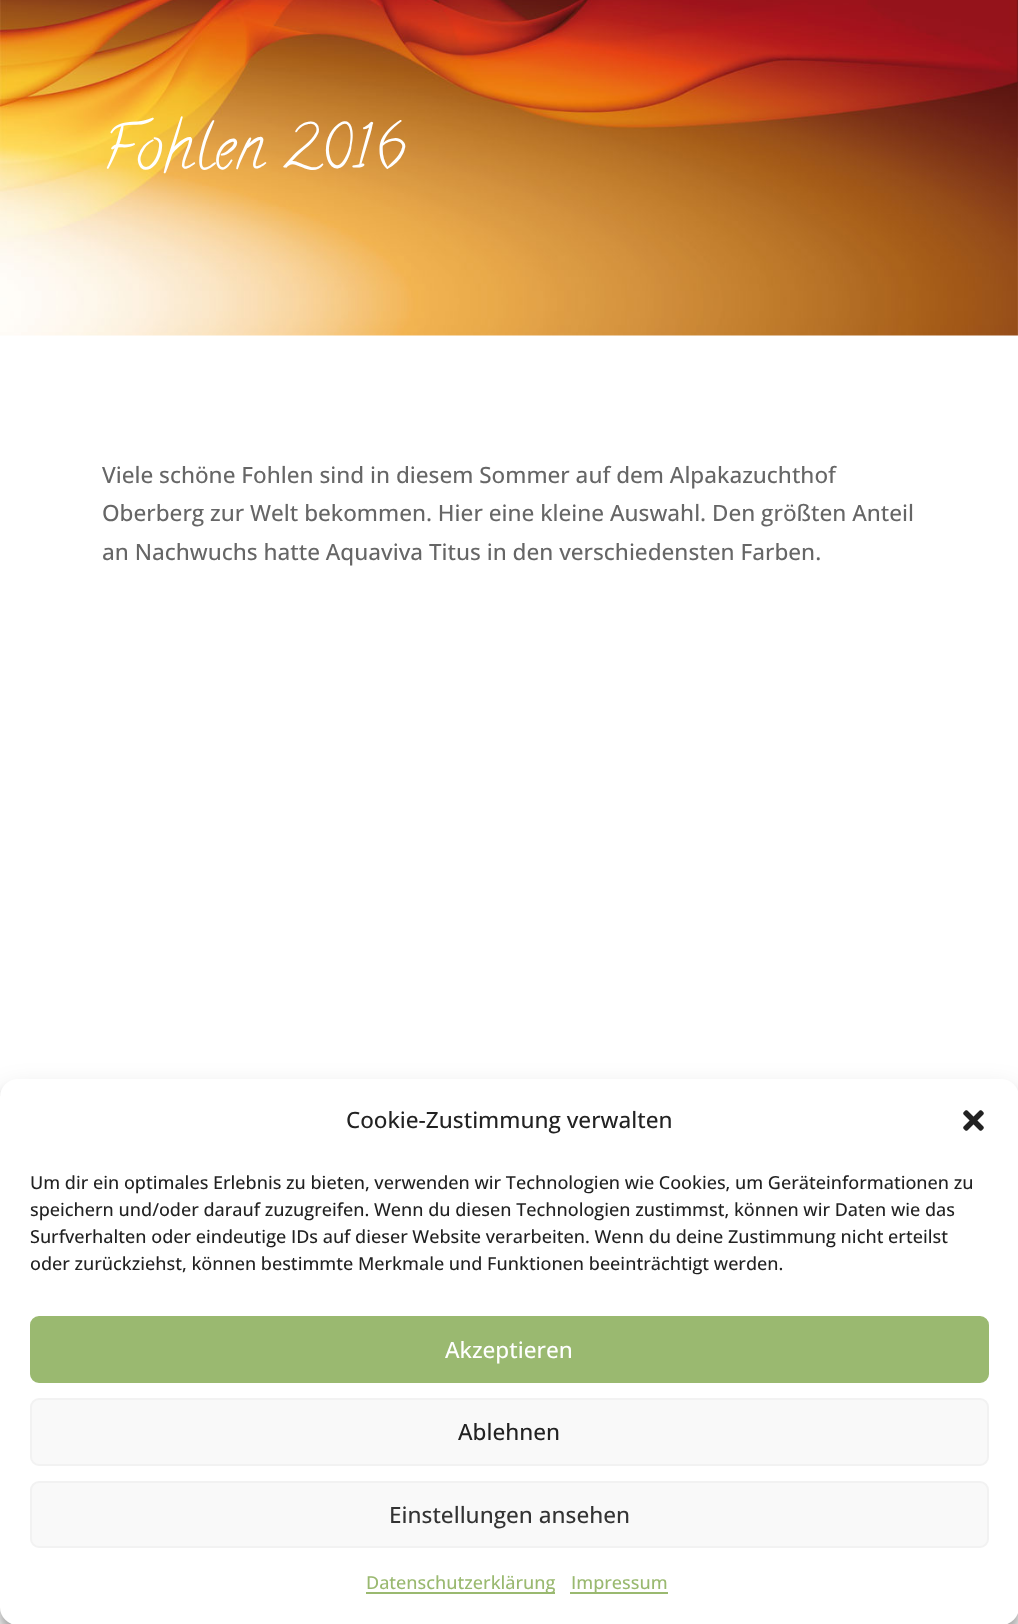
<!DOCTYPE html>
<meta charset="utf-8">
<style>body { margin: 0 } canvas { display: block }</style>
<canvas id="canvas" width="1018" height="1624"></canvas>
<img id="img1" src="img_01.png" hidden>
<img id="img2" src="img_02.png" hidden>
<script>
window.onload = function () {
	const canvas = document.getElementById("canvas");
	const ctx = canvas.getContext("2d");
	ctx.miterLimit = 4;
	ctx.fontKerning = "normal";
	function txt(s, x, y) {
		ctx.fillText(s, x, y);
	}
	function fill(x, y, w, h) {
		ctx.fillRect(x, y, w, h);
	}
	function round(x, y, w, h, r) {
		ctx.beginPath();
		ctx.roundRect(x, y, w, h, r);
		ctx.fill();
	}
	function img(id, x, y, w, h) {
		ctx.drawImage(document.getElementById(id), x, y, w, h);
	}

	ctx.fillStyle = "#FFFFFF";
	fill(0, 0, 1018, 1624);
	img("img1", 0, 0, 1018, 336);
	ctx.fillStyle = "rgba(0, 0, 0, 0.23)";
	ctx.filter = "blur(4.5px)";
	ctx.beginPath();
	ctx.roundRect(0, 1088, 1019, 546, 18);
	ctx.fill();
	ctx.filter = "none";
	ctx.fillStyle = "rgba(0, 0, 0, 0.19)";
	ctx.filter = "blur(15px)";
	ctx.beginPath();
	ctx.roundRect(0, 1094, 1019, 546, 18);
	ctx.fill();
	ctx.filter = "none";
	ctx.fillStyle = "#FFFFFF";
	round(0, 1079, 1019, 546, 18);
	img("img2", 963, 1110, 21, 21);
	ctx.fillStyle = "#9AB970";
	ctx.beginPath();
	ctx.roundRect(31, 1317, 957, 65, 8);
	ctx.fill();
	ctx.strokeStyle = "#9AB970";
	ctx.lineWidth = 2;
	ctx.stroke();
	ctx.fillStyle = "#F9F9F9";
	ctx.beginPath();
	ctx.roundRect(31, 1399, 957, 66, 8);
	ctx.fill();
	ctx.strokeStyle = "#F2F2F2";
	ctx.stroke();
	ctx.beginPath();
	ctx.roundRect(31, 1482, 957, 65, 8);
	ctx.fill();
	ctx.stroke();
	ctx.fillStyle = "#9AB970";
	fill(366, 1592, 189, 2);
	fill(570, 1592, 98, 2);
	ctx.letterSpacing = "1.5px";
	ctx.font = "60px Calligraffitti";
	ctx.fillStyle = "#FFFFFF";
	txt("Fohlen 2016", 102, 167);
	ctx.letterSpacing = "0px";
	ctx.font = "500 22.5px Open Sans";
	ctx.fillStyle = "#666666";
	txt("Viele schöne Fohlen sind in diesem Sommer auf dem Alpakazuchthof", 102, 483);
	txt("Oberberg zur Welt bekommen. Hier eine kleine Auswahl. Den größten Anteil", 102, 521);
	txt("an Nachwuchs hatte Aquaviva Titus in den verschiedensten Farben.", 102, 560);
	ctx.fillStyle = "#222222";
	txt("Cookie-Zustimmung verwalten", 346, 1128);
	ctx.font = "500 18px Open Sans";
	txt("Um dir ein optimales Erlebnis zu bieten, verwenden wir Technologien wie Cookies, um Geräteinformationen zu", 30, 1189);
	txt("speichern und/oder darauf zuzugreifen. Wenn du diesen Technologien zustimmst, können wir Daten wie das", 30, 1216);
	txt("Surfverhalten oder eindeutige IDs auf dieser Website verarbeiten. Wenn du deine Zustimmung nicht erteilst", 30, 1243);
	txt("oder zurückziehst, können bestimmte Merkmale und Funktionen beeinträchtigt werden.", 30, 1270);
	ctx.font = "500 22.5px Open Sans";
	ctx.fillStyle = "#FFFFFF";
	txt("Akzeptieren", 445, 1358);
	ctx.fillStyle = "#222222";
	txt("Ablehnen", 458, 1440);
	ctx.fillStyle = "#333333";
	txt("Einstellungen ansehen", 389, 1523);
	ctx.font = "500 18px Open Sans";
	ctx.fillStyle = "#9AB970";
	txt("Datenschutzerklärung", 366, 1589);
	txt("Impressum", 571, 1589);
};
</script>
